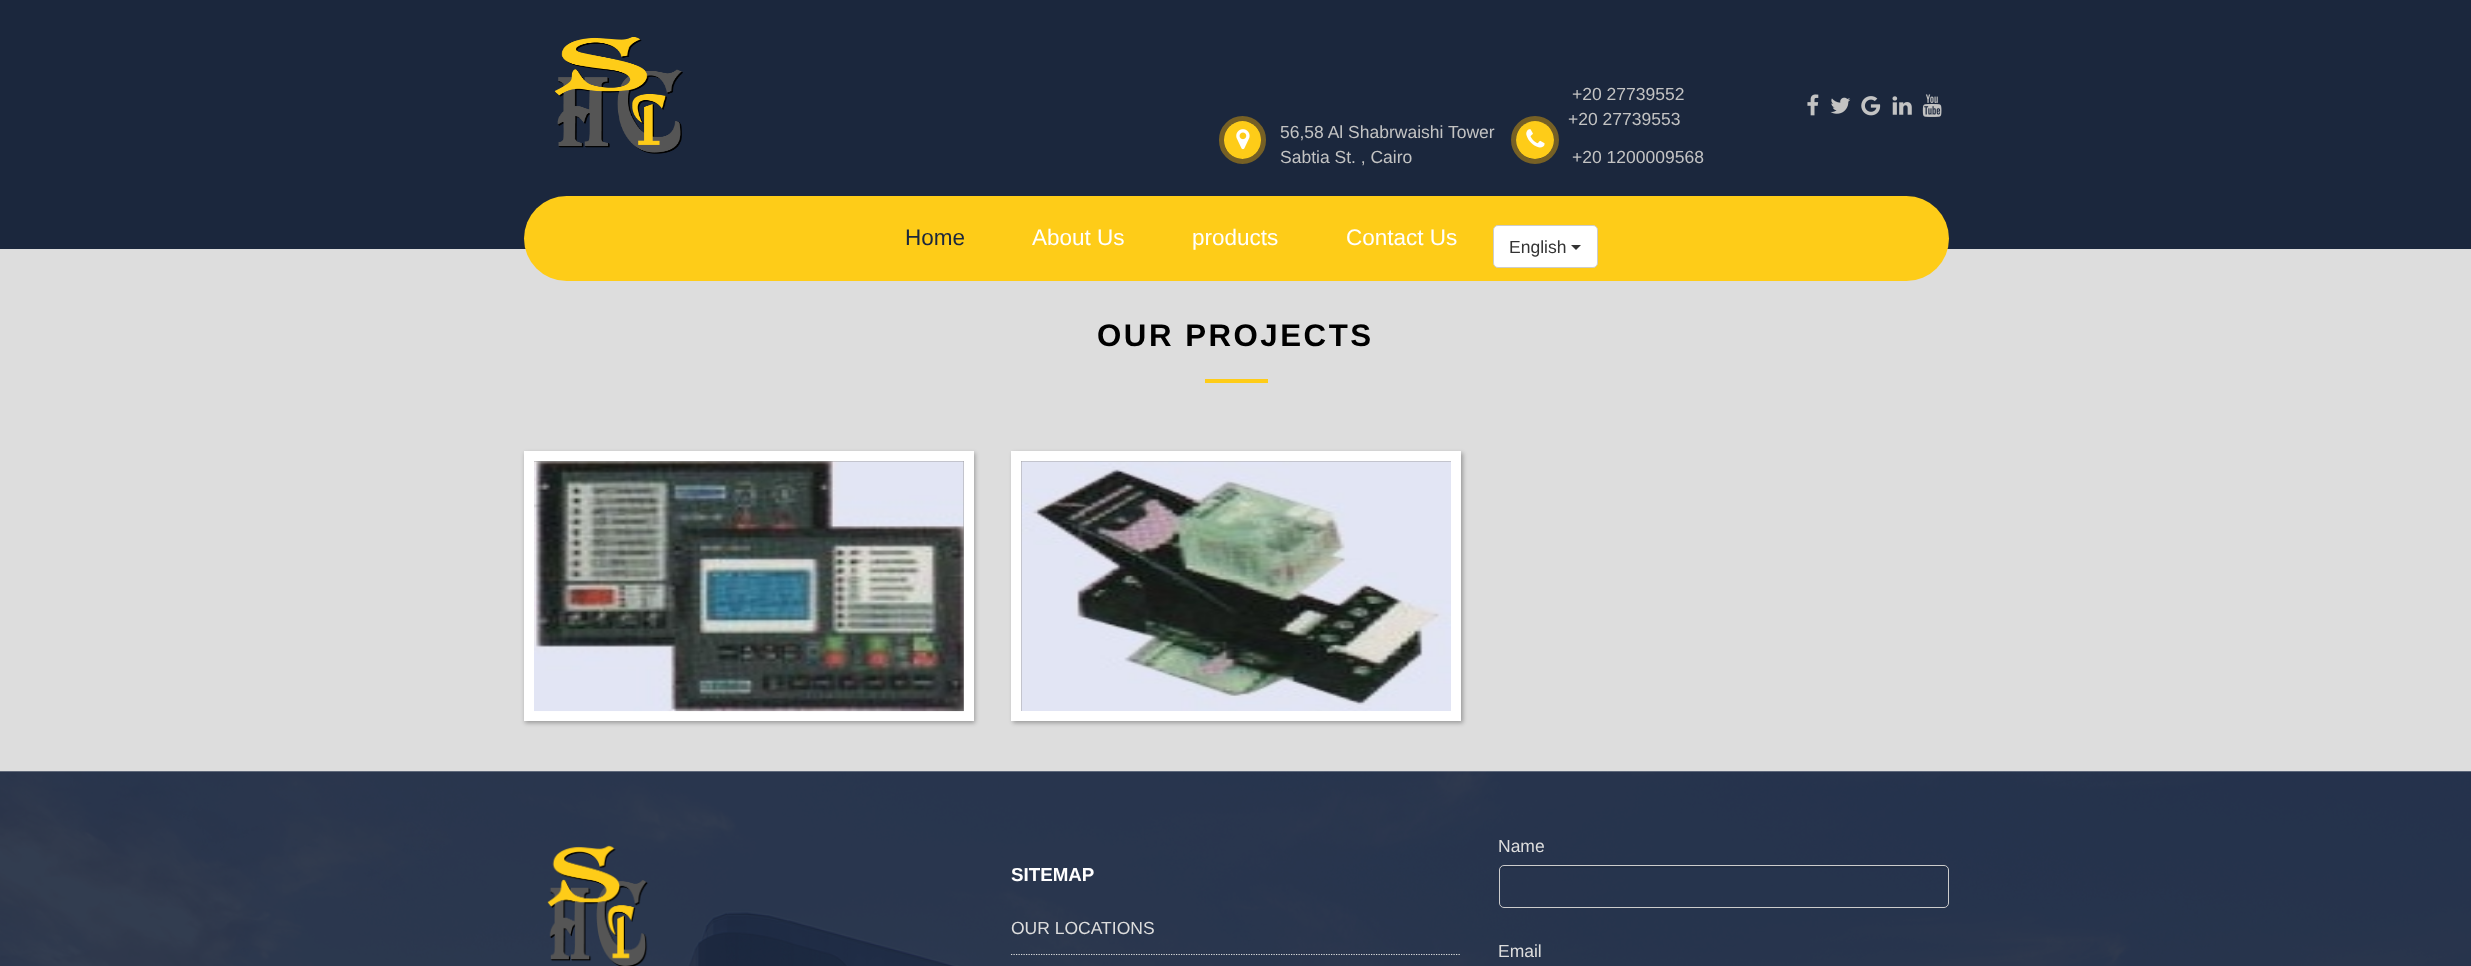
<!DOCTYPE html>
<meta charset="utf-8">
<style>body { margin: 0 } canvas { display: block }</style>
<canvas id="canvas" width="2471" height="966"></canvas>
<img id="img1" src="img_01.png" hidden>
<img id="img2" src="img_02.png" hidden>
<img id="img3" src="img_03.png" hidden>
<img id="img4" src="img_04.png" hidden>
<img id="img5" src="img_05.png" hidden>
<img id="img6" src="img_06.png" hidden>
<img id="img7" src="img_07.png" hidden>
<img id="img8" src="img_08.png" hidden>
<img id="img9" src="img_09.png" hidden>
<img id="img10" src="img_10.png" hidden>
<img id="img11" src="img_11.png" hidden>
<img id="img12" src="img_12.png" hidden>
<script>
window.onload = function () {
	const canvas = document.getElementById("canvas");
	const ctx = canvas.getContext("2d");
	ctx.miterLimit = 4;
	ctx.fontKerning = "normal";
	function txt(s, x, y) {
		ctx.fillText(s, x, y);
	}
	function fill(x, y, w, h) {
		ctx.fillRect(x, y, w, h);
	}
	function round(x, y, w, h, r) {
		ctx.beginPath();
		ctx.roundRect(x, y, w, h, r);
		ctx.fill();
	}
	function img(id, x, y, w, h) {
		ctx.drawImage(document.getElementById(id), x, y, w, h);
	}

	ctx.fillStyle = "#FFFFFF";
	fill(0, 0, 2471, 966);
	ctx.fillStyle = "#1B273D";
	fill(0, 0, 2471, 249);
	img("img1", 554, 37, 129, 117);
	ctx.beginPath();
	ctx.roundRect(1221.5, 118.5, 42, 43, 21);
	ctx.strokeStyle = "#766025";
	ctx.lineWidth = 5;
	ctx.stroke();
	ctx.fillStyle = "#FECC18";
	round(1224, 121, 37, 38, 18.5);
	img("img2", 1236, 129, 14, 21);
	ctx.beginPath();
	ctx.arc(1535, 140, 21.5, 0, Math.PI * 2);
	ctx.stroke();
	ctx.beginPath();
	ctx.arc(1535, 140, 19, 0, Math.PI * 2);
	ctx.fill();
	img("img3", 1526, 129, 19, 19);
	img("img4", 1807, 94, 12, 22);
	img("img5", 1830, 97, 21, 17);
	img("img6", 1861, 96, 20, 20);
	img("img7", 1892, 96, 20, 19);
	img("img8", 1922, 94, 20, 23);
	ctx.fillStyle = "#DDDDDD";
	fill(0, 249, 2471, 522);
	ctx.fillStyle = "#FECC18";
	round(524, 196, 1425, 85, 42.5);
	ctx.fillStyle = "#FFFFFF";
	ctx.beginPath();
	ctx.roundRect(1493.5, 225.5, 104, 42, 4.5);
	ctx.fill();
	ctx.strokeStyle = "#CCCCCC";
	ctx.lineWidth = 1;
	ctx.stroke();
	ctx.fillStyle = "#333333";
	ctx.beginPath();
	ctx.moveTo(1571, 245);
	ctx.lineTo(1581, 245);
	ctx.lineTo(1576, 250);
	ctx.closePath();
	ctx.fill();
	ctx.fillStyle = "#FECC18";
	fill(1205, 379, 63, 4);
	ctx.fillStyle = "rgba(0, 0, 0, 0.3)";
	ctx.filter = "blur(2px)";
	ctx.beginPath();
	ctx.rect(525, 453, 450, 270);
	ctx.fill();
	ctx.filter = "none";
	ctx.strokeStyle = "#FFFFFF";
	ctx.lineWidth = 10;
	ctx.strokeRect(529, 456, 440, 260);
	img("img9", 534, 461, 430, 251);
	ctx.filter = "blur(2px)";
	ctx.beginPath();
	ctx.rect(1013, 453, 450, 270);
	ctx.fill();
	ctx.filter = "none";
	ctx.strokeRect(1016, 456, 440, 260);
	img("img10", 1021, 461, 430, 250);
	img("img11", 0, 771, 2471, 195);
	img("img12", 547, 845, 101, 121);
	ctx.beginPath();
	ctx.moveTo(1011, 954.5);
	ctx.lineTo(1461, 954.5);
	ctx.strokeStyle = "#DDDDDD";
	ctx.lineWidth = 1.2;
	ctx.setLineDash([1.25, 1.25]);
	ctx.stroke();
	ctx.fillStyle = "#233047";
	ctx.beginPath();
	ctx.moveTo(1504, 868);
	ctx.lineTo(1944, 868);
	ctx.bezierCurveTo(1946, 868, 1948, 869, 1948, 871);
	ctx.bezierCurveTo(1948, 868, 1947, 866, 1944, 866);
	ctx.lineTo(1504, 866);
	ctx.lineTo(1502, 867);
	ctx.lineTo(1501, 868);
	ctx.lineTo(1500, 871);
	ctx.bezierCurveTo(1500, 869, 1502, 868, 1504, 868);
	ctx.closePath();
	ctx.fill();
	ctx.beginPath();
	ctx.roundRect(1499.5, 865.5, 449, 42, 4.5);
	ctx.strokeStyle = "#CCCCCC";
	ctx.lineWidth = 1;
	ctx.setLineDash([]);
	ctx.stroke();
	ctx.font = "17.5px Liberation Sans";
	ctx.fillStyle = "#C3C3C3";
	txt("56,58 Al Shabrwaishi Tower", 1280, 138);
	txt("Sabtia St. , Cairo", 1280, 163);
	txt("+20 27739552", 1572, 100);
	txt("+20 27739553", 1568, 125);
	txt("+20 1200009568", 1572, 163);
	ctx.font = "22.5px Liberation Sans";
	ctx.fillStyle = "#1B273D";
	txt("Home", 905, 245);
	ctx.fillStyle = "#FFFFFF";
	txt("About Us", 1032, 245);
	txt("products", 1192, 245);
	txt("Contact Us", 1346, 245);
	ctx.font = "17.5px Liberation Sans";
	ctx.fillStyle = "#333333";
	txt("English", 1509, 253);
	ctx.letterSpacing = "2.5px";
	ctx.font = "bold 31.25px Liberation Sans";
	ctx.fillStyle = "#000000";
	txt("OUR PROJECTS", 1097, 346);
	ctx.letterSpacing = "0px";
	ctx.font = "bold 18.75px Liberation Sans";
	ctx.fillStyle = "#FFFFFF";
	txt("SITEMAP", 1011, 881);
	ctx.font = "17.5px Liberation Sans";
	ctx.fillStyle = "#DDDDDD";
	txt("OUR LOCATIONS", 1011, 934);
	txt("Name", 1498, 852);
	txt("Email", 1498, 957);
};
</script>
